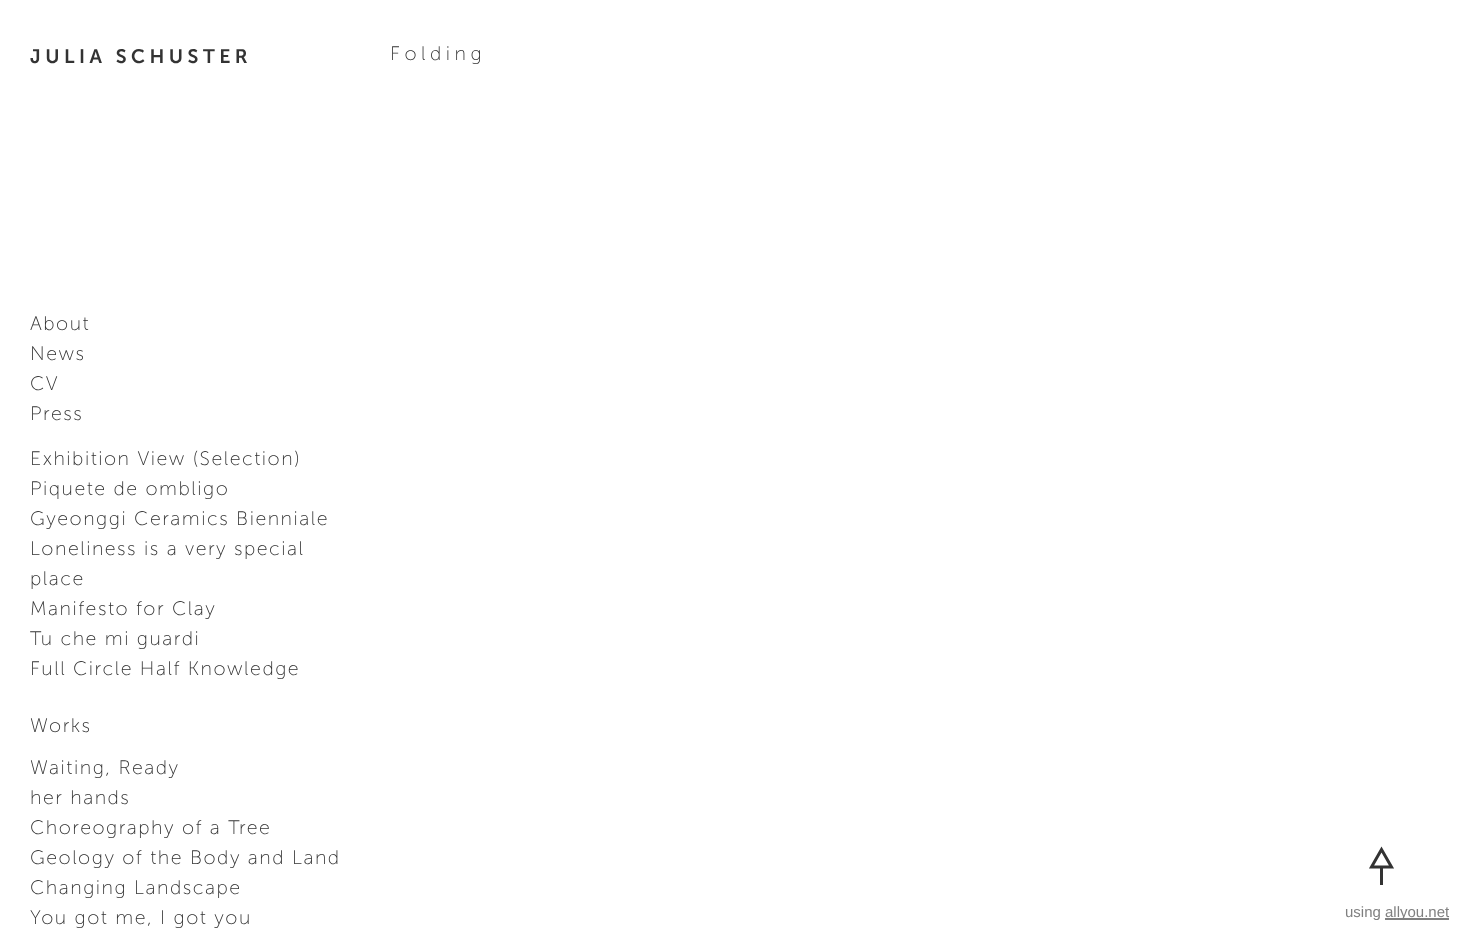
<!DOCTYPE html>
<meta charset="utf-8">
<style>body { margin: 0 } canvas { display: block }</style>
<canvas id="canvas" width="1463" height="934"></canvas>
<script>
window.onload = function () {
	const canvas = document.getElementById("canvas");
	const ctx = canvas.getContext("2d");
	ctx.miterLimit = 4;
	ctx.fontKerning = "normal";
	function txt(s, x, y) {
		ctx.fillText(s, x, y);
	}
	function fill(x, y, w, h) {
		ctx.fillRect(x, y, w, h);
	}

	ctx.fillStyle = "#FFFFFF";
	fill(0, 0, 1463, 934);
	ctx.beginPath();
	ctx.moveTo(1371.5, 867);
	ctx.lineTo(1381.5, 849.5);
	ctx.lineTo(1391.5, 867);
	ctx.closePath();
	ctx.strokeStyle = "#333333";
	ctx.lineWidth = 3;
	ctx.stroke();
	ctx.fillStyle = "#333333";
	fill(1380, 868, 3, 17);
	ctx.fillStyle = "#808080";
	fill(1385, 918, 64, 2);
	ctx.letterSpacing = "4.5px";
	ctx.font = "600 19.5px Museo Sans";
	ctx.fillStyle = "#333333";
	txt("JULIA SCHUSTER", 30, 63);
	ctx.letterSpacing = "1.5px";
	ctx.font = "300 19.5px Museo Sans";
	txt("About", 30, 330);
	txt("News", 30, 360);
	txt("CV", 30, 390);
	txt("Press", 30, 420);
	txt("Exhibition View (Selection)", 30, 465);
	txt("Piquete de ombligo", 30, 495);
	txt("Gyeonggi Ceramics Bienniale", 30, 525);
	txt("Loneliness is a very special", 30, 555);
	txt("place", 30, 585);
	txt("Manifesto for Clay", 30, 615);
	txt("Tu che mi guardi", 30, 645);
	txt("Full Circle Half Knowledge", 30, 675);
	txt("Works", 30, 732);
	txt("Waiting, Ready", 30, 774);
	txt("her hands", 30, 804);
	txt("Choreography of a Tree", 30, 834);
	txt("Geology of the Body and Land", 30, 864);
	txt("Changing Landscape", 30, 894);
	txt("You got me, I got you", 30, 924);
	ctx.letterSpacing = "4.5px";
	txt("Folding", 390, 60);
	ctx.letterSpacing = "0px";
	ctx.font = "15px Liberation Sans";
	ctx.fillStyle = "#808080";
	txt("using", 1345, 917);
	txt("allyou.net", 1385, 917);
};
</script>
